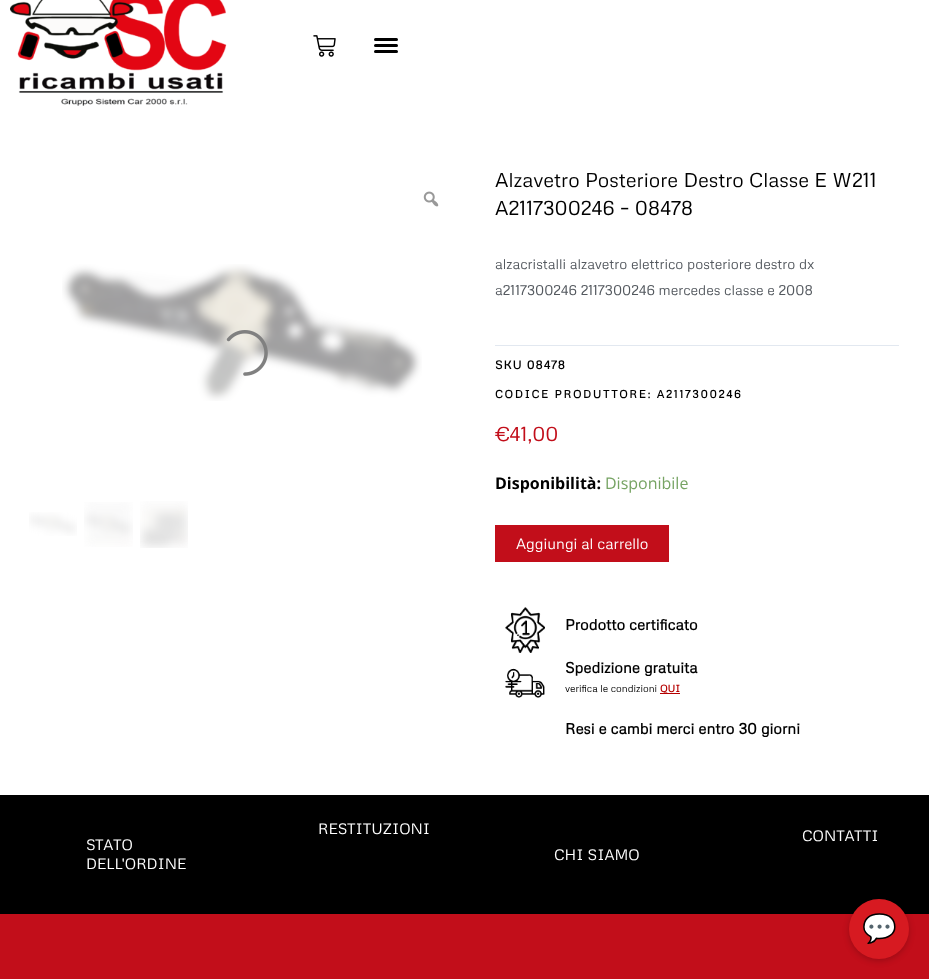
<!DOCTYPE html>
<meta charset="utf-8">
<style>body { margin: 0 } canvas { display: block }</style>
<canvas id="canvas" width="929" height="979"></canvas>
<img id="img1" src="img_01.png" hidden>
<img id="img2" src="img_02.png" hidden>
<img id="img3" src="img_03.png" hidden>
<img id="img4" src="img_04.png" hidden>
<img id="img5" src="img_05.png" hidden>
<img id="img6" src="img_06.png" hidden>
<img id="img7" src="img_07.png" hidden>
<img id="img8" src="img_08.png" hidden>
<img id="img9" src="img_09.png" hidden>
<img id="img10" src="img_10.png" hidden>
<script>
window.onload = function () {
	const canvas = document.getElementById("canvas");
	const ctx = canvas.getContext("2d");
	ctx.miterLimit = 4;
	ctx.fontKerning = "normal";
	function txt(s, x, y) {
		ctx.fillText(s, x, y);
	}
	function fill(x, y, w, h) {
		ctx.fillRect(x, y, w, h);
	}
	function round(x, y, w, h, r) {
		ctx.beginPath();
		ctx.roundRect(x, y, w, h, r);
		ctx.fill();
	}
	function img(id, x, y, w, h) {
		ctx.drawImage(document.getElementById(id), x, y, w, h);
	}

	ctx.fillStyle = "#FFFFFF";
	fill(0, 0, 929, 979);
	img("img1", 10, 0, 217, 106);
	img("img2", 313, 35, 23, 22);
	ctx.fillStyle = "#000000";
	round(374, 38, 24, 3, 1.5);
	round(374, 44, 24, 3, 1.5);
	round(374, 50, 24, 3, 1.5);
	img("img3", 423, 191, 16, 16);
	img("img4", 62, 264, 360, 137);
	img("img5", 29, 512, 48, 24);
	img("img6", 84, 502, 49, 45);
	img("img7", 140, 501, 48, 47);
	img("img8", 226, 330, 42, 46);
	ctx.fillStyle = "#E2E8F0";
	fill(495, 345, 404, 1);
	ctx.fillStyle = "#C20E1A";
	fill(495, 525, 174, 37);
	img("img9", 505, 607, 40, 46);
	img("img10", 505, 668, 40, 30);
	ctx.fillStyle = "#B50000";
	fill(660, 693, 20, 1);
	ctx.fillStyle = "#000000";
	fill(0, 795, 929, 119);
	ctx.fillStyle = "#C20E1A";
	fill(0, 914, 929, 65);
	ctx.fillStyle = "rgba(0, 0, 0, 0.2)";
	ctx.filter = "blur(3px)";
	ctx.beginPath();
	ctx.roundRect(849, 901, 60, 60, 30);
	ctx.fill();
	ctx.filter = "none";
	ctx.fillStyle = "#D71A21";
	ctx.beginPath();
	ctx.arc(879, 929, 30, 0, Math.PI * 2);
	ctx.fill();
	ctx.font = "20px Metrophobic";
	ctx.fillStyle = "#000000";
	txt("Alzavetro Posteriore Destro Classe E W211", 495, 187);
	txt("A2117300246 – 08478", 495, 215);
	ctx.font = "14px Metrophobic";
	ctx.fillStyle = "#54595F";
	txt("alzacristalli alzavetro elettrico posteriore destro dx", 495, 269);
	txt("a2117300246 2117300246 mercedes classe e 2008", 495, 295);
	ctx.letterSpacing = "1px";
	ctx.font = "bold 11.75px Metrophobic";
	ctx.fillStyle = "#000000";
	txt("SKU 08478", 495, 369);
	ctx.letterSpacing = "1.8px";
	ctx.font = "bold 11px Metrophobic";
	txt("CODICE PRODUTTORE: A2117300246", 495, 398);
	ctx.letterSpacing = "0px";
	ctx.font = "20px Metrophobic";
	ctx.fillStyle = "#C20E1A";
	txt("€", 495, 441);
	txt("41,00", 509, 441);
	ctx.font = "bold 16px Open Sans";
	ctx.fillStyle = "#000000";
	txt("Disponibilità:", 495, 489);
	ctx.font = "16px Open Sans";
	ctx.fillStyle = "#77A464";
	txt("Disponibile", 605, 489);
	ctx.font = "15px Metrophobic";
	ctx.fillStyle = "#FFFFFF";
	txt("Aggiungi al carrello", 516, 549);
	ctx.font = "bold 15px Metrophobic";
	ctx.fillStyle = "#000000";
	txt("Prodotto certificato", 565, 630);
	txt("Spedizione gratuita", 565, 673);
	ctx.font = "10px Metrophobic";
	txt("verifica le condizioni", 565, 692);
	ctx.font = "bold 10px Metrophobic";
	ctx.fillStyle = "#B50000";
	txt("QUI", 660, 692);
	ctx.font = "bold 15px Metrophobic";
	ctx.fillStyle = "#000000";
	txt("Resi e cambi merci entro 30 giorni", 565, 734);
	ctx.font = "15px Metrophobic";
	ctx.fillStyle = "#FFFFFF";
	txt("RESTITUZIONI", 318, 834);
	txt("CONTATTI", 802, 841);
	txt("STATO", 86, 850);
	txt("DELL'ORDINE", 86, 869);
	txt("CHI SIAMO", 554, 860);
	ctx.font = "28px Noto Color Emoji";
	txt("💬", 862, 938);
};
</script>
